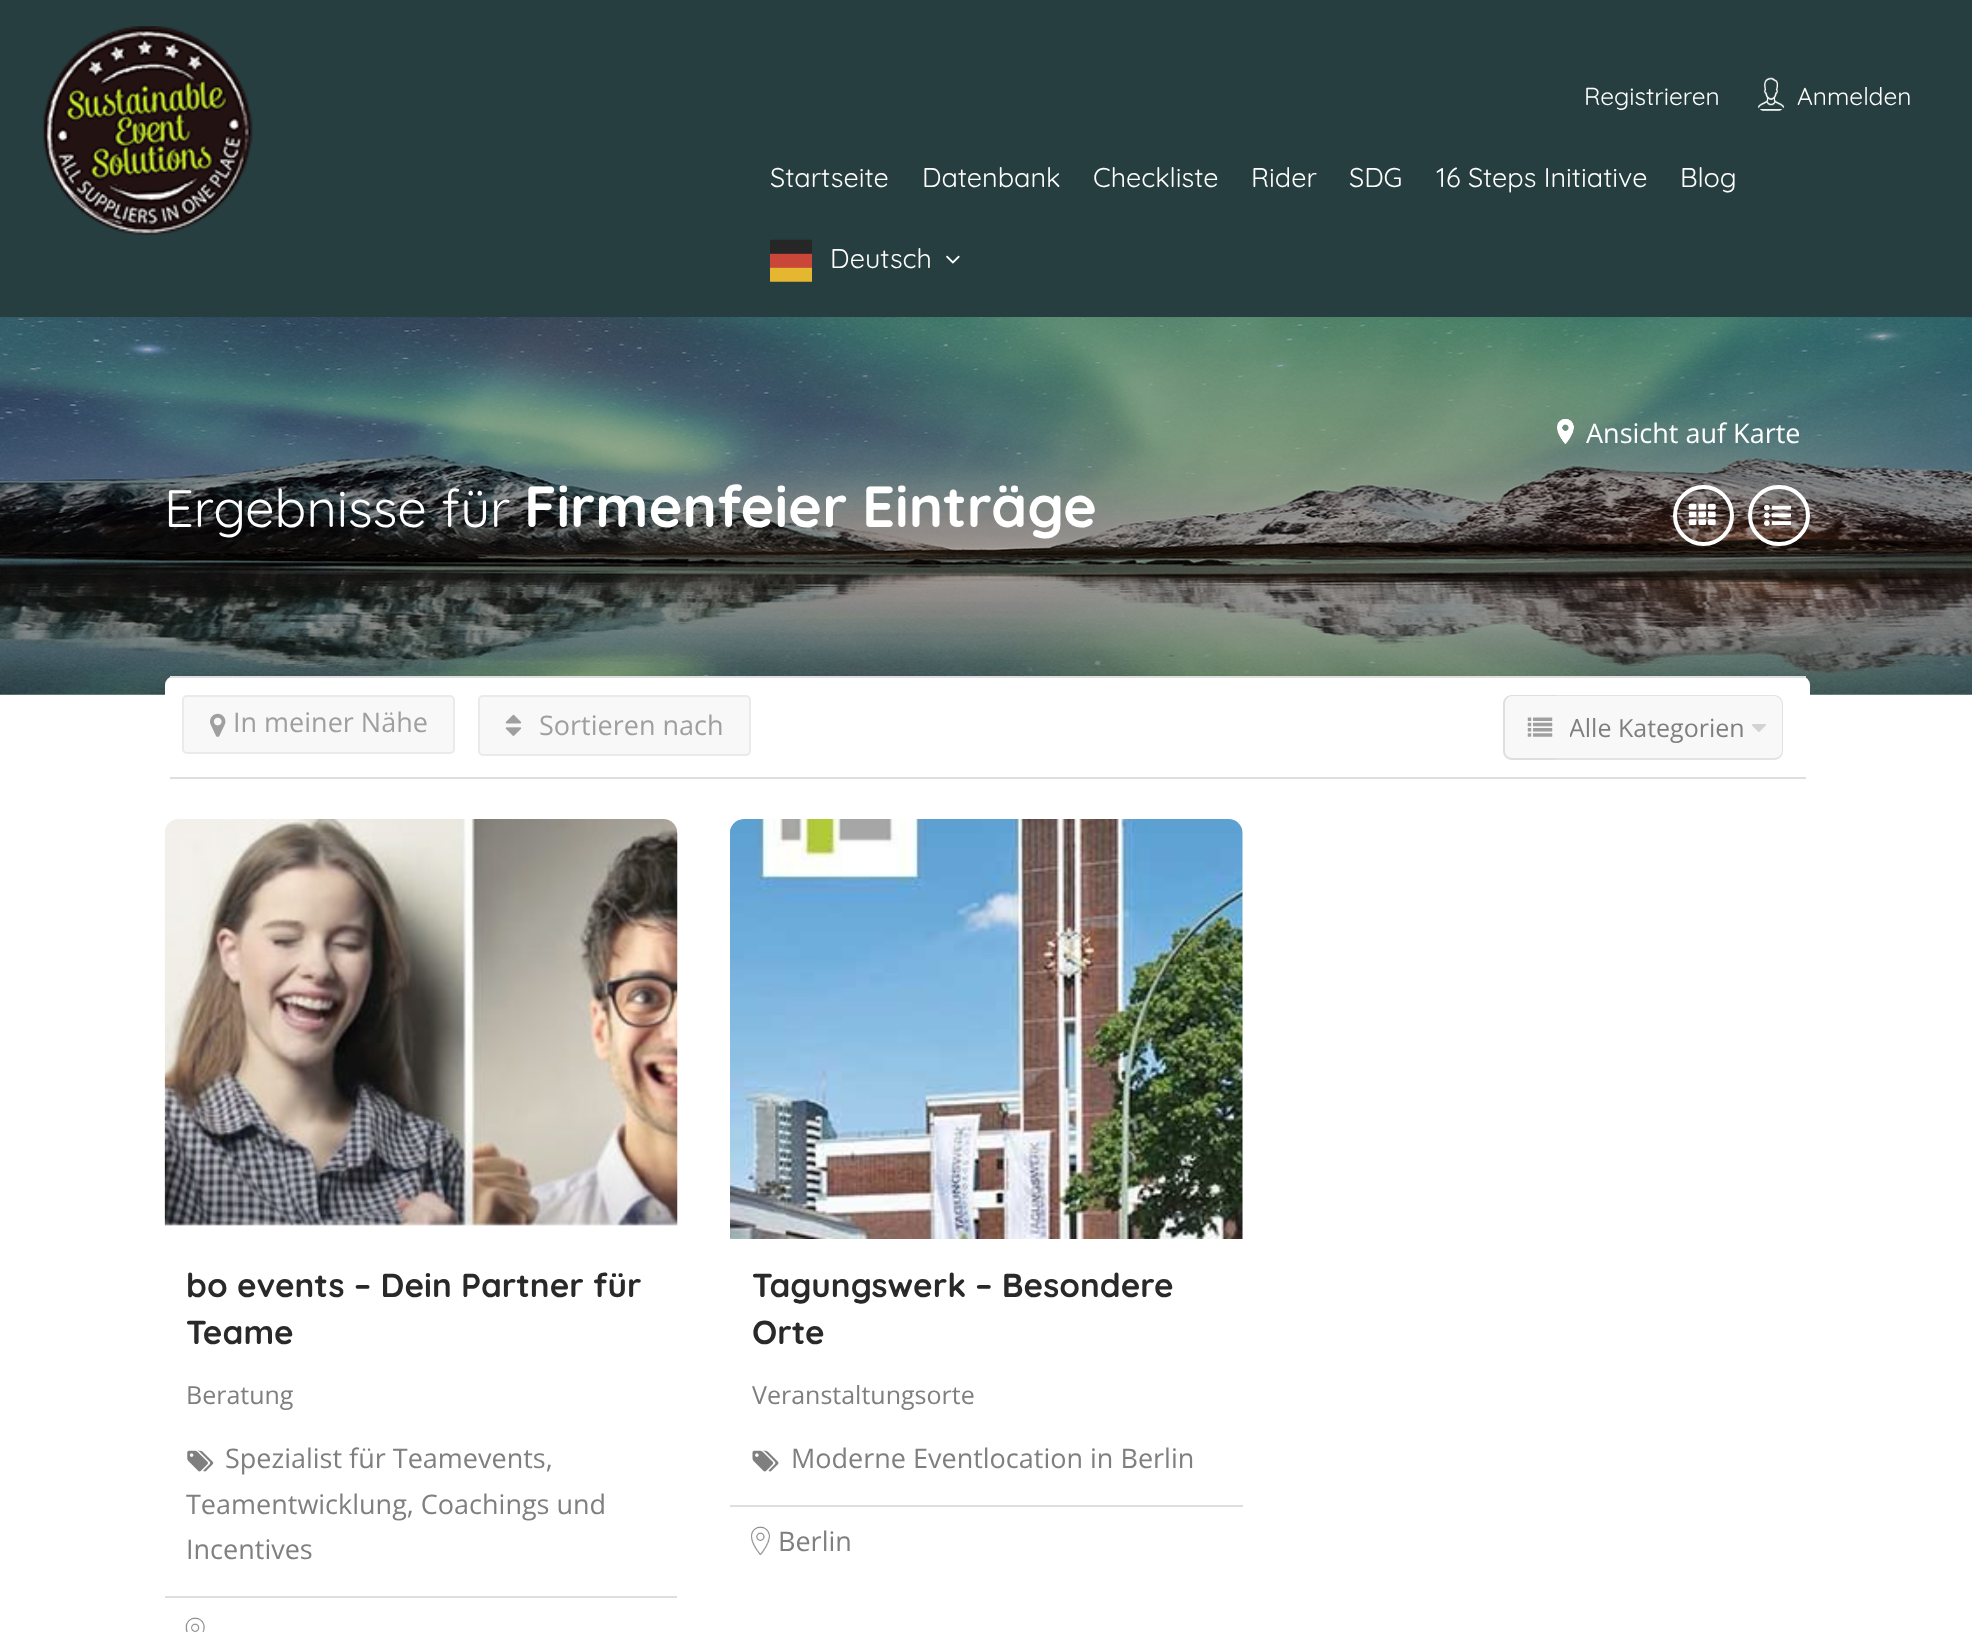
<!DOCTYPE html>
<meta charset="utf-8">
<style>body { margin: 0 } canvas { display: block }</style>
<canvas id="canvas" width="1972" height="1632"></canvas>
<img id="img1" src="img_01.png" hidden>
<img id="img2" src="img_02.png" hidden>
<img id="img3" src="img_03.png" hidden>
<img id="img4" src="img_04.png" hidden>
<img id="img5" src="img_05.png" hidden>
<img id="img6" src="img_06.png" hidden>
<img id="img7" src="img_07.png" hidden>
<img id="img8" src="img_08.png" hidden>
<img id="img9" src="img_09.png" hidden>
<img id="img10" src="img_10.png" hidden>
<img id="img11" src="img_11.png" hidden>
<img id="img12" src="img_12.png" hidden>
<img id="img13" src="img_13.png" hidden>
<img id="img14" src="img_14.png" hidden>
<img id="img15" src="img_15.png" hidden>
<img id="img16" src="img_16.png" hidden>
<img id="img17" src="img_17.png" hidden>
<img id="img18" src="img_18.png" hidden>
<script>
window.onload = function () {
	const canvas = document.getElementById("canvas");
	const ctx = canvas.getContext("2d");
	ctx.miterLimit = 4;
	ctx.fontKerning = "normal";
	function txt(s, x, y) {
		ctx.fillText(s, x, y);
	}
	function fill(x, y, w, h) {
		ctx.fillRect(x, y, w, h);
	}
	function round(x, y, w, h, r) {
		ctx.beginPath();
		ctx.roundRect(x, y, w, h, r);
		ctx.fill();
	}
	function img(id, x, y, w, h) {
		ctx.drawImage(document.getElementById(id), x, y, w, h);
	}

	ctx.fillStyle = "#FFFFFF";
	fill(0, 0, 1972, 1632);
	ctx.fillStyle = "#263E3F";
	fill(0, 0, 1972, 317);
	img("img1", 43, 26, 210, 209);
	img("img2", 1757, 77, 28, 34);
	img("img3", 770, 239, 42, 43);
	img("img4", 946, 255, 14, 9);
	img("img5", 0, 317, 1972, 378);
	img("img6", 1557, 419, 17, 25);
	ctx.beginPath();
	ctx.arc(1703.5, 515.5, 28.5, 0, Math.PI * 2);
	ctx.strokeStyle = "#FFFFFF";
	ctx.lineWidth = 4;
	ctx.stroke();
	img("img7", 1688, 503, 28, 22);
	ctx.beginPath();
	ctx.roundRect(1750, 487, 58, 57, 28.5);
	ctx.stroke();
	img("img8", 1764, 504, 27, 22);
	ctx.fillStyle = "#FFFFFF";
	round(165, 676, 1645, 103, 9);
	ctx.fillStyle = "#DEDEDE";
	fill(170, 676, 1636, 2);
	fill(170, 777, 1636, 2);
	ctx.fillStyle = "#F8F8F8";
	ctx.beginPath();
	ctx.roundRect(183, 696, 271, 57, 4);
	ctx.fill();
	ctx.strokeStyle = "#EAEAEA";
	ctx.lineWidth = 2;
	ctx.stroke();
	img("img9", 210, 713, 16, 24);
	ctx.beginPath();
	ctx.roundRect(479, 696, 271, 59, 4);
	ctx.fill();
	ctx.stroke();
	img("img10", 505, 714, 17, 22);
	ctx.beginPath();
	ctx.roundRect(1503, 695, 53, 65, [9, 0, 0, 9]);
	ctx.fill();
	ctx.fillStyle = "#DEDEDE";
	ctx.beginPath();
	ctx.moveTo(1512, 695);
	ctx.lineTo(1556, 695);
	ctx.lineTo(1556, 760);
	ctx.lineTo(1512, 760);
	ctx.bezierCurveTo(1507, 760, 1503, 756, 1503, 751);
	ctx.lineTo(1503, 704);
	ctx.bezierCurveTo(1503, 699, 1507, 695, 1512, 695);
	ctx.closePath();
	ctx.moveTo(1512, 696);
	ctx.lineTo(1556, 696);
	ctx.lineTo(1556, 758);
	ctx.lineTo(1512, 758);
	ctx.bezierCurveTo(1508, 758, 1505, 755, 1505, 751);
	ctx.lineTo(1505, 704);
	ctx.bezierCurveTo(1505, 700, 1508, 696, 1512, 696);
	ctx.closePath();
	ctx.fill("evenodd");
	img("img11", 1527, 717, 26, 20);
	ctx.fillStyle = "#F8F8F8";
	ctx.beginPath();
	ctx.roundRect(1556, 695, 227, 65, [0, 9, 9, 0]);
	ctx.fill();
	ctx.fillStyle = "#E3E3E3";
	ctx.beginPath();
	ctx.moveTo(1556, 695);
	ctx.lineTo(1774, 695);
	ctx.bezierCurveTo(1779, 695, 1783, 699, 1783, 704);
	ctx.lineTo(1783, 751);
	ctx.bezierCurveTo(1783, 756, 1779, 760, 1774, 760);
	ctx.lineTo(1556, 760);
	ctx.closePath();
	ctx.moveTo(1556, 696);
	ctx.lineTo(1774, 696);
	ctx.bezierCurveTo(1778, 696, 1782, 700, 1782, 704);
	ctx.lineTo(1782, 751);
	ctx.bezierCurveTo(1782, 755, 1778, 758, 1774, 758);
	ctx.lineTo(1556, 758);
	ctx.closePath();
	ctx.fill("evenodd");
	img("img12", 1752, 724, 14, 8);
	img("img13", 164, 819, 514, 407);
	img("img14", 187, 1450, 27, 22);
	ctx.fillStyle = "#DEDEDE";
	fill(165, 1596, 512, 2);
	img("img15", 185, 1617, 20, 15);
	img("img16", 730, 819, 513, 420);
	img("img17", 752, 1450, 27, 22);
	fill(730, 1505, 513, 2);
	img("img18", 751, 1526, 19, 29);
	ctx.font = "24.5px Quicksand";
	ctx.fillStyle = "#FFFFFF";
	txt("Registrieren", 1584, 105);
	txt("Anmelden", 1797, 105);
	ctx.font = "27px Quicksand";
	txt("Startseite", 770, 187);
	txt("Datenbank", 922, 187);
	txt("Checkliste", 1093, 187);
	txt("Rider", 1251, 187);
	txt("SDG", 1349, 187);
	txt("16 Steps Initiative", 1436, 187);
	txt("Blog", 1680, 187);
	txt("Deutsch", 830, 268);
	ctx.font = "27px Open Sans";
	txt("Ansicht auf Karte", 1586, 443);
	ctx.font = "52.5px Quicksand";
	txt("Ergebnisse für", 164, 527);
	ctx.font = "bold 57.75px Quicksand";
	txt("Firmenfeier", 524, 527);
	txt("Einträge", 862, 527);
	ctx.font = "27px Open Sans";
	ctx.fillStyle = "#9F9F9F";
	txt("In meiner Nähe", 233, 732);
	txt("Sortieren nach", 539, 735);
	ctx.save();
	ctx.beginPath();
	ctx.rect(1570, 697, 198, 63);
	ctx.clip();
	ctx.font = "25px Open Sans";
	ctx.fillStyle = "#7F7F7F";
	txt("Alle Kategorien", 1569, 737);
	ctx.restore();
	ctx.font = "bold 33.25px Quicksand";
	ctx.fillStyle = "#292929";
	txt("bo events – Dein Partner für", 186, 1297);
	txt("Teame", 186, 1344);
	ctx.font = "25px Open Sans";
	ctx.fillStyle = "#7F7F7F";
	txt("Beratung", 186, 1404);
	ctx.font = "27px Open Sans";
	txt("Spezialist für Teamevents,", 225, 1468);
	txt("Teamentwicklung, Coachings und", 186, 1514);
	txt("Incentives", 186, 1559);
	ctx.font = "bold 33.25px Quicksand";
	ctx.fillStyle = "#292929";
	txt("Tagungswerk – Besondere", 752, 1297);
	txt("Orte", 752, 1344);
	ctx.font = "25px Open Sans";
	ctx.fillStyle = "#7F7F7F";
	txt("Veranstaltungsorte", 752, 1404);
	ctx.font = "27px Open Sans";
	txt("Moderne Eventlocation in Berlin", 791, 1468);
	txt("Berlin", 778, 1551);
};
</script>
